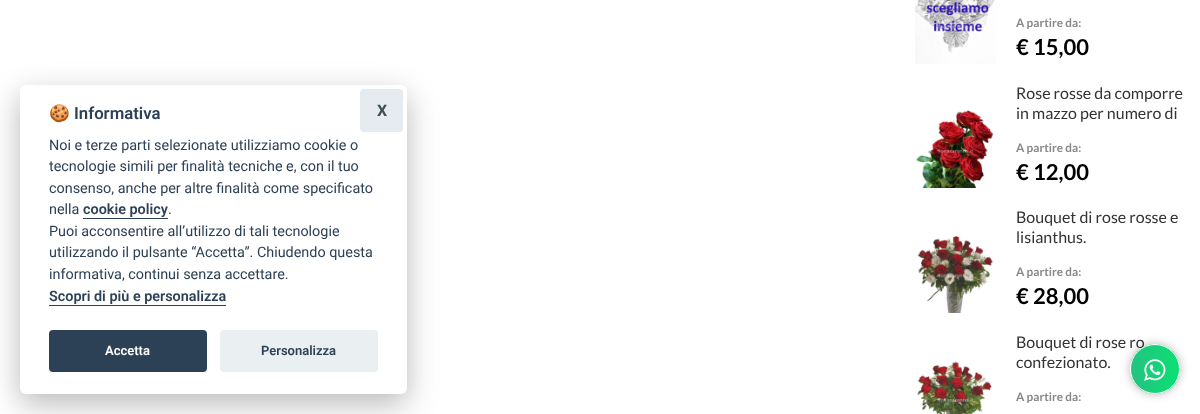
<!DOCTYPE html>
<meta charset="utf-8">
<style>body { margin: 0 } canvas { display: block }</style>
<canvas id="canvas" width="1200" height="414"></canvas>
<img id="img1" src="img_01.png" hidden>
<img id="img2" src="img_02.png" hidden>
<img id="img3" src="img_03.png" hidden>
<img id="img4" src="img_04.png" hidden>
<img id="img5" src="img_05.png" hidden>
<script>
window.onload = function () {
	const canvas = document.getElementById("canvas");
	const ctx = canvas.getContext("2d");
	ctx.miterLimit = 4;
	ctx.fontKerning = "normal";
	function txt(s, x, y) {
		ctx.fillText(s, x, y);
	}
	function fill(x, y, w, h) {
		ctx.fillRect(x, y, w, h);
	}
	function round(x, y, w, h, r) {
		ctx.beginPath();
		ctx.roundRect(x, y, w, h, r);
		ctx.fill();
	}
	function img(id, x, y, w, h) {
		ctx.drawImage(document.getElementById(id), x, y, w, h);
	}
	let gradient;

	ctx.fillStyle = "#FFFFFF";
	fill(0, 0, 1200, 414);
	ctx.fillStyle = "rgba(2, 2, 3, 0.28)";
	ctx.filter = "blur(15px)";
	ctx.beginPath();
	ctx.roundRect(20, 95, 387, 309, 6);
	ctx.fill();
	ctx.filter = "none";
	ctx.fillStyle = "#FFFFFF";
	round(20, 85, 387, 309, 6);
	ctx.fillStyle = "#2D4156";
	fill(83, 218, 85, 1);
	fill(49, 305, 177, 1);
	round(49, 330, 158, 42, 4);
	ctx.fillStyle = "#EAEFF2";
	round(220, 330, 158, 42, 4);
	ctx.fillStyle = "#E5EBEF";
	round(360, 89, 43, 43, 4);
	img("img1", 915, 0, 81, 64);
	img("img2", 915, 84, 81, 104);
	img("img3", 915, 208, 81, 105);
	img("img4", 915, 333, 81, 81);
	ctx.fillStyle = "rgba(12, 12, 12, 0.3)";
	ctx.filter = "blur(5px)";
	ctx.beginPath();
	ctx.roundRect(1130, 344, 50, 50, 25);
	ctx.fill();
	ctx.filter = "none";
	ctx.font = "bold 16.75px Noto Color Emoji";
	ctx.fillStyle = "#2D4156";
	txt("🍪", 49, 119);
	ctx.font = "600 16.75px Roboto";
	txt("Informativa", 74, 119);
	ctx.font = "14.4px Roboto";
	txt("Noi e terze parti selezionate utilizziamo cookie o", 49, 150);
	txt("tecnologie simili per finalità tecniche e, con il tuo", 49, 171);
	txt("consenso, anche per altre finalità come specificato", 49, 193);
	txt("nella", 49, 214);
	ctx.font = "600 14.4px Roboto";
	txt("cookie policy", 83, 214);
	ctx.font = "14.4px Roboto";
	txt(".", 168, 214);
	txt("Puoi acconsentire all’utilizzo di tali tecnologie", 49, 236);
	txt("utilizzando il pulsante “Accetta”. Chiudendo questa", 49, 257);
	txt("informativa, continui senza accettare.", 49, 279);
	ctx.font = "600 14.4px Roboto";
	txt("Scopri di più e personalizza", 49, 301);
	ctx.font = "600 13px Roboto";
	ctx.fillStyle = "#FFFFFF";
	txt("Accetta", 105, 355);
	ctx.fillStyle = "#2D4156";
	txt("Personalizza", 261, 355);
	ctx.font = "bold 16px Roboto";
	ctx.fillStyle = "#40505A";
	txt("X", 377, 116);
	ctx.font = "bold 11.75px Lato";
	ctx.fillStyle = "#888888";
	txt("A partire da:", 1016, 27);
	ctx.font = "bold 22px Lato";
	ctx.fillStyle = "#000000";
	txt("€ 15,00", 1016, 55);
	ctx.font = "16px Lato";
	ctx.fillStyle = "#333333";
	txt("Rose rosse da comporre", 1016, 99);
	txt("in mazzo per numero di", 1016, 119);
	ctx.font = "bold 11.75px Lato";
	ctx.fillStyle = "#888888";
	txt("A partire da:", 1016, 152);
	ctx.font = "bold 22px Lato";
	ctx.fillStyle = "#000000";
	txt("€ 12,00", 1016, 180);
	ctx.font = "16px Lato";
	ctx.fillStyle = "#333333";
	txt("Bouquet di rose rosse e", 1016, 223);
	txt("lisianthus.", 1016, 243);
	ctx.font = "bold 11.75px Lato";
	ctx.fillStyle = "#888888";
	txt("A partire da:", 1016, 276);
	ctx.font = "bold 22px Lato";
	ctx.fillStyle = "#000000";
	txt("€ 28,00", 1016, 304);
	ctx.font = "16px Lato";
	ctx.fillStyle = "#333333";
	txt("Bouquet di rose ro", 1016, 348);
	txt("confezionato.", 1016, 368);
	ctx.font = "bold 11.75px Lato";
	ctx.fillStyle = "#888888";
	txt("A partire da:", 1016, 401);
	ctx.save();
	ctx.beginPath();
	ctx.roundRect(1130, 344, 50, 50, 25);
	ctx.clip();
	gradient = ctx.createLinearGradient(1131, 369, 1179, 369);
	gradient.addColorStop(0, "#26C281");
	gradient.addColorStop(1, "#09E072");
	ctx.fillStyle = gradient;
	fill(1131, 344, 48, 50);
	ctx.restore();
	ctx.beginPath();
	ctx.arc(1155, 369, 24.5, 0, Math.PI * 2);
	ctx.strokeStyle = "#FFFFFF";
	ctx.stroke();
	img("img5", 1144, 359, 22, 22);
};
</script>
